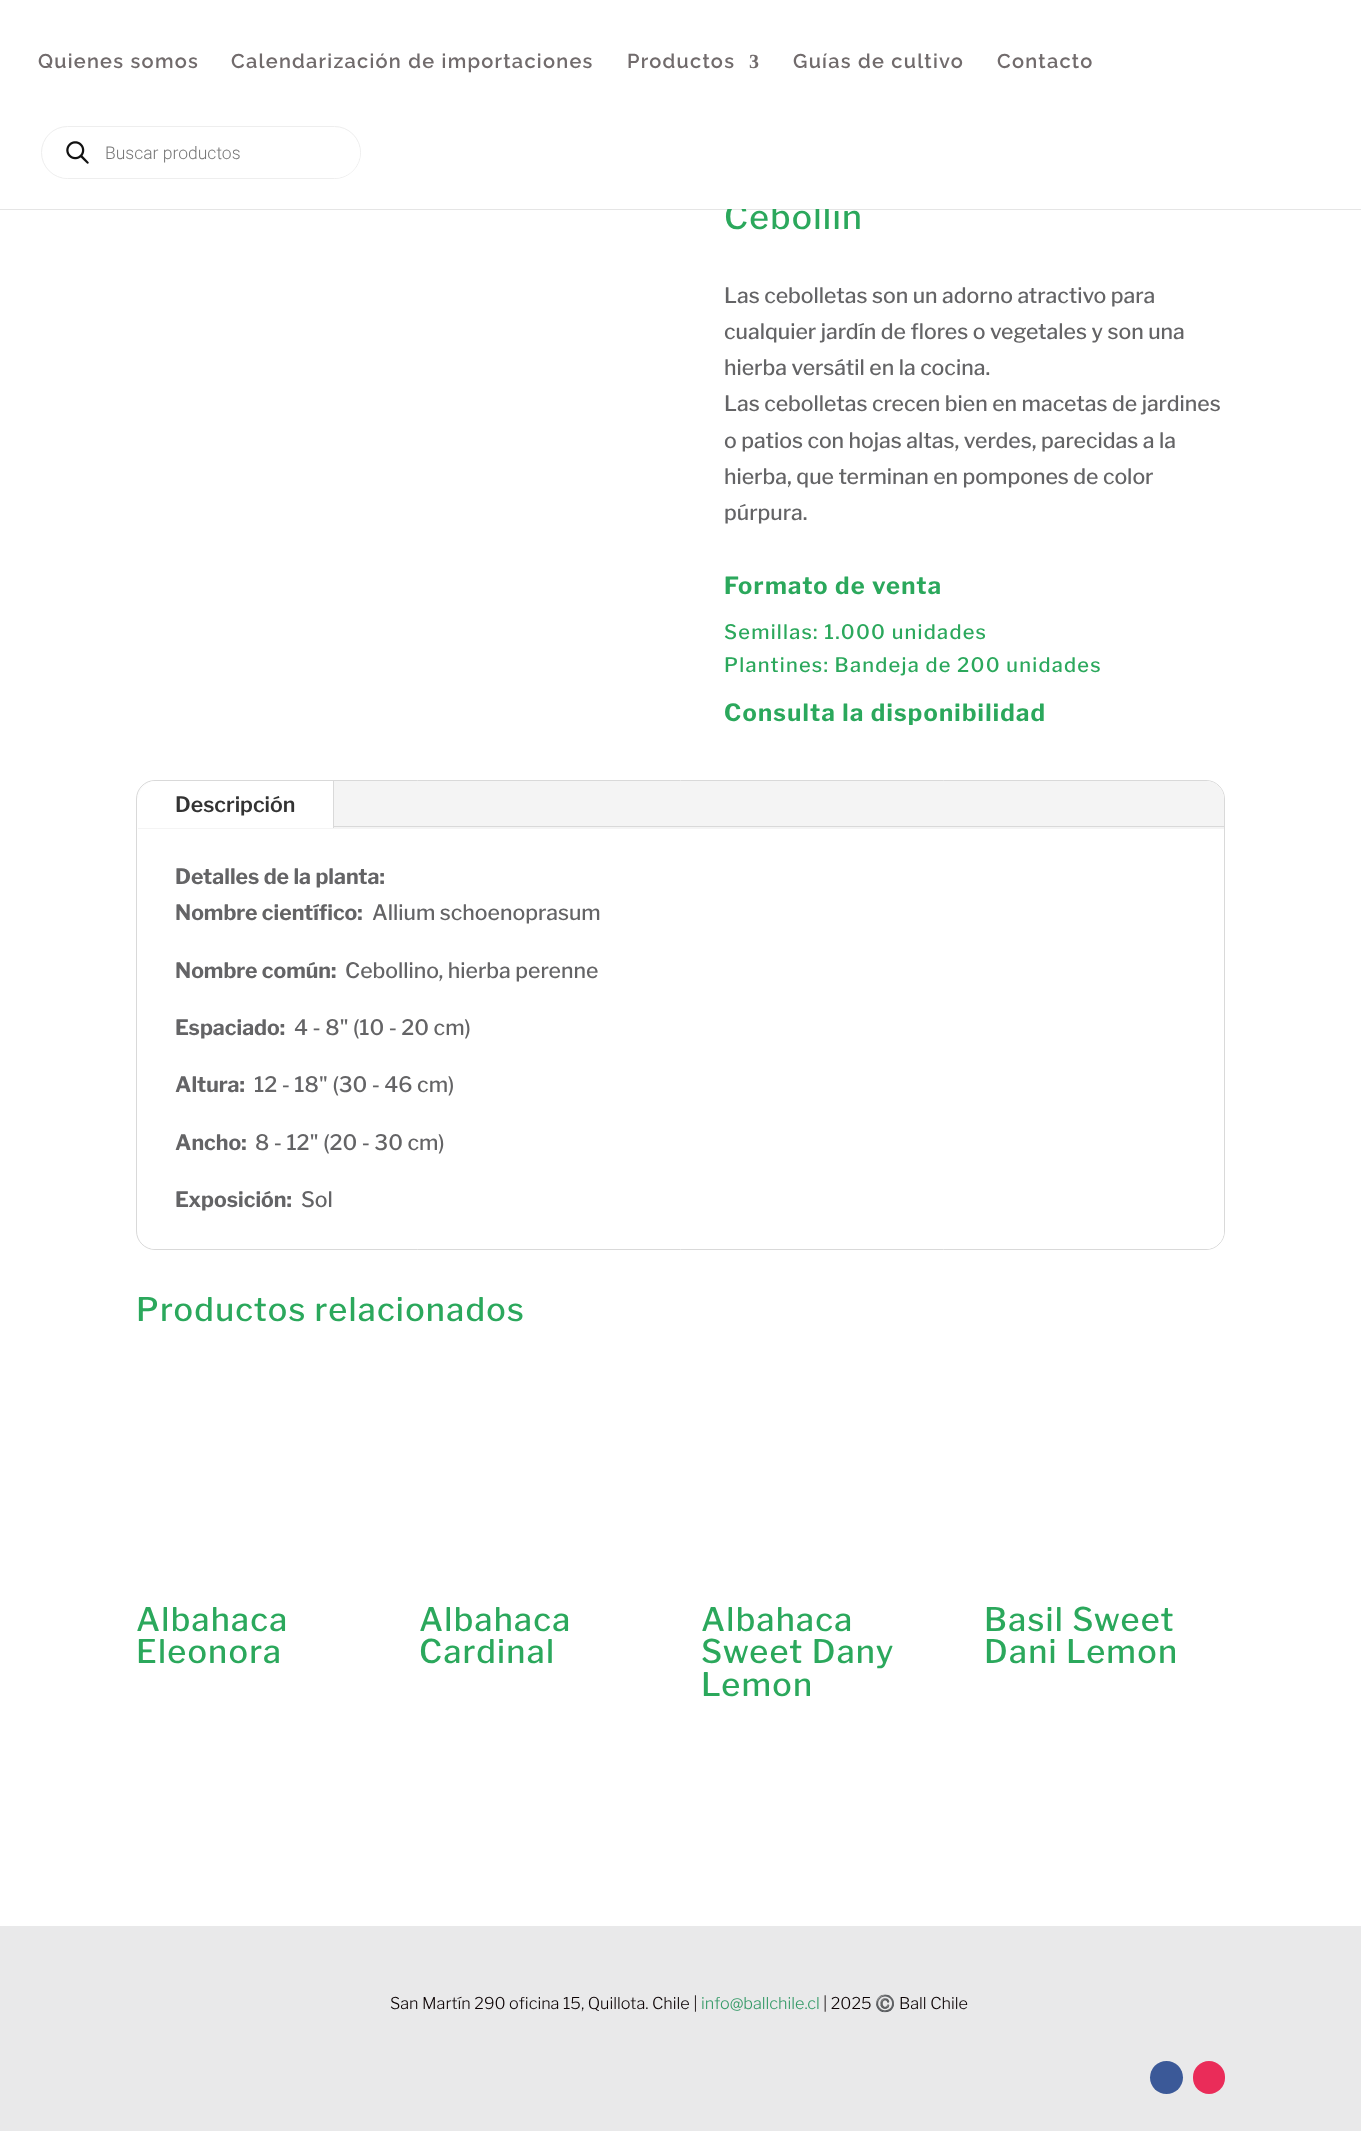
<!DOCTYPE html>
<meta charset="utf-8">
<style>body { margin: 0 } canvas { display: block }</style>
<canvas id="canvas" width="1361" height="2131"></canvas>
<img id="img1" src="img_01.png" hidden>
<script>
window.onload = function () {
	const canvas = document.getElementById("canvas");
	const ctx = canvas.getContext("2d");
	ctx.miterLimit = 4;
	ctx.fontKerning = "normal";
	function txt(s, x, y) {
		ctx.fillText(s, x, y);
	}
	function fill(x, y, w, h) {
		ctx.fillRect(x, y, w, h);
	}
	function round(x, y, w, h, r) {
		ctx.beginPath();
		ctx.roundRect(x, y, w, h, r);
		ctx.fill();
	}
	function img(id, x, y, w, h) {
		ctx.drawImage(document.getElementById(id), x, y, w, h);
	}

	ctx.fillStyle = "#FFFFFF";
	fill(0, 0, 1361, 2131);
	ctx.fillStyle = "rgba(0, 0, 0, 0.1)";
	fill(0, 209, 1361, 1);
	ctx.beginPath();
	ctx.roundRect(41.5, 126.5, 319, 52, 26);
	ctx.strokeStyle = "#EEEEEE";
	ctx.stroke();
	ctx.fillStyle = "#FFFFFF";
	round(43, 128, 317, 50, 25);
	img("img1", 66, 141, 23, 23);
	ctx.beginPath();
	ctx.roundRect(136.5, 780.5, 1088, 469, 18.5);
	ctx.strokeStyle = "#D9D9D9";
	ctx.stroke();
	ctx.fillStyle = "#F4F4F4";
	ctx.beginPath();
	ctx.roundRect(138, 781, 1086, 48, [18, 18, 0, 0]);
	ctx.fill();
	ctx.fillStyle = "#FFFFFF";
	ctx.beginPath();
	ctx.roundRect(138, 781, 196, 47, [18, 0, 0, 0]);
	ctx.fill();
	ctx.fillStyle = "#D9D9D9";
	fill(333, 781, 1, 47);
	fill(334, 826, 890, 1);
	ctx.fillStyle = "#FFFFFF";
	ctx.beginPath();
	ctx.roundRect(138, 829, 1086, 420, [0, 0, 18, 18]);
	ctx.fill();
	ctx.fillStyle = "#E9E9EA";
	fill(0, 1926, 1361, 205);
	ctx.fillStyle = "#3B5998";
	ctx.beginPath();
	ctx.arc(1166.5, 2077.5, 16.5, 0, Math.PI * 2);
	ctx.fill();
	ctx.fillStyle = "#EA2C59";
	round(1193, 2061, 32, 33, 16);
	ctx.letterSpacing = "1.25px";
	ctx.font = "600 20px Raleway";
	ctx.fillStyle = "#716B6C";
	txt("Quienes somos", 38, 68);
	txt("Calendarización de importaciones", 231, 68);
	txt("Productos", 627, 68);
	ctx.font = "bold 20px Liberation Serif";
	txt("3", 749, 68);
	ctx.font = "600 20px Raleway";
	txt("Guías de cultivo", 793, 68);
	txt("Contacto", 997, 68);
	ctx.letterSpacing = "0px";
	ctx.font = "300 17.5px Roboto";
	ctx.fillStyle = "#777777";
	txt("Buscar productos", 105, 159);
	ctx.letterSpacing = "1.25px";
	ctx.font = "500 33.75px Libre Franklin";
	ctx.fillStyle = "#2BA85C";
	txt("Cebollín", 724, 229);
	ctx.fillStyle = "#FFFFFF";
	fill(727, 203, 115, 6);
	ctx.letterSpacing = "0px";
	ctx.font = "500 21.25px Libre Franklin";
	ctx.fillStyle = "#646466";
	txt("Las cebolletas son un adorno atractivo para", 724, 303);
	txt("cualquier jardín de flores o vegetales y son una", 724, 339);
	txt("hierba versátil en la cocina.", 724, 375);
	txt("Las cebolletas crecen bien en macetas de jardines", 724, 411);
	txt("o patios con hojas altas, verdes, parecidas a la", 724, 448);
	txt("hierba, que terminan en pompones de color", 724, 484);
	txt("púrpura.", 724, 520);
	ctx.letterSpacing = "1.25px";
	ctx.font = "bold 23.75px Libre Franklin";
	ctx.fillStyle = "#2BA85C";
	txt("Formato de venta", 724, 594);
	ctx.font = "500 20px Libre Franklin";
	txt("Semillas: 1.000 unidades", 724, 639);
	txt("Plantines: Bandeja de 200 unidades", 724, 672);
	ctx.font = "bold 23.75px Libre Franklin";
	txt("Consulta la disponibilidad", 724, 721);
	ctx.letterSpacing = "0px";
	ctx.font = "600 21.25px Libre Franklin";
	ctx.fillStyle = "#333333";
	txt("Descripción", 175, 812);
	ctx.font = "bold 21.25px Libre Franklin";
	ctx.fillStyle = "#646466";
	txt("Detalles de la planta:", 175, 884);
	txt("Nombre científico:", 175, 920);
	ctx.font = "500 21.25px Libre Franklin";
	txt("Allium schoenoprasum", 372, 920);
	ctx.font = "bold 21.25px Libre Franklin";
	txt("Nombre común:", 175, 978);
	ctx.font = "500 21.25px Libre Franklin";
	txt("Cebollino, hierba perenne", 345, 978);
	ctx.font = "bold 21.25px Libre Franklin";
	txt("Espaciado:", 175, 1035);
	ctx.font = "500 21.25px Libre Franklin";
	txt("4 - 8\" (10 - 20 cm)", 294, 1035);
	ctx.font = "bold 21.25px Libre Franklin";
	txt("Altura:", 175, 1092);
	ctx.font = "500 21.25px Libre Franklin";
	txt("12 - 18\" (30 - 46 cm)", 254, 1092);
	ctx.font = "bold 21.25px Libre Franklin";
	txt("Ancho:", 175, 1150);
	ctx.font = "500 21.25px Libre Franklin";
	txt("8 - 12\" (20 - 30 cm)", 255, 1150);
	ctx.font = "bold 21.25px Libre Franklin";
	txt("Exposición:", 175, 1207);
	ctx.font = "500 21.25px Libre Franklin";
	txt("Sol", 301, 1207);
	ctx.letterSpacing = "1.25px";
	ctx.font = "500 32.5px Libre Franklin";
	ctx.fillStyle = "#2BA85C";
	txt("Productos relacionados", 136, 1321);
	txt("Albahaca", 136, 1631);
	txt("Eleonora", 136, 1663);
	txt("Albahaca", 419, 1631);
	txt("Cardinal", 419, 1663);
	txt("Albahaca", 701, 1631);
	txt("Sweet Dany", 701, 1663);
	txt("Lemon", 701, 1696);
	txt("Basil Sweet", 984, 1631);
	txt("Dani Lemon", 984, 1663);
	ctx.letterSpacing = "0px";
	ctx.font = "300 16.25px Libre Franklin";
	ctx.fillStyle = "#0A0002";
	txt("San Martín 290 oficina 15, Quillota. Chile |", 390, 2009);
	ctx.fillStyle = "#339966";
	txt("info@ballchile.cl", 701, 2009);
	ctx.fillStyle = "#0A0002";
	txt("| 2025", 823, 2009);
	ctx.font = "16.25px Noto Color Emoji";
	txt("©️", 875, 2009);
	ctx.font = "300 16.25px Libre Franklin";
	txt("Ball Chile", 899, 2009);
};
</script>
